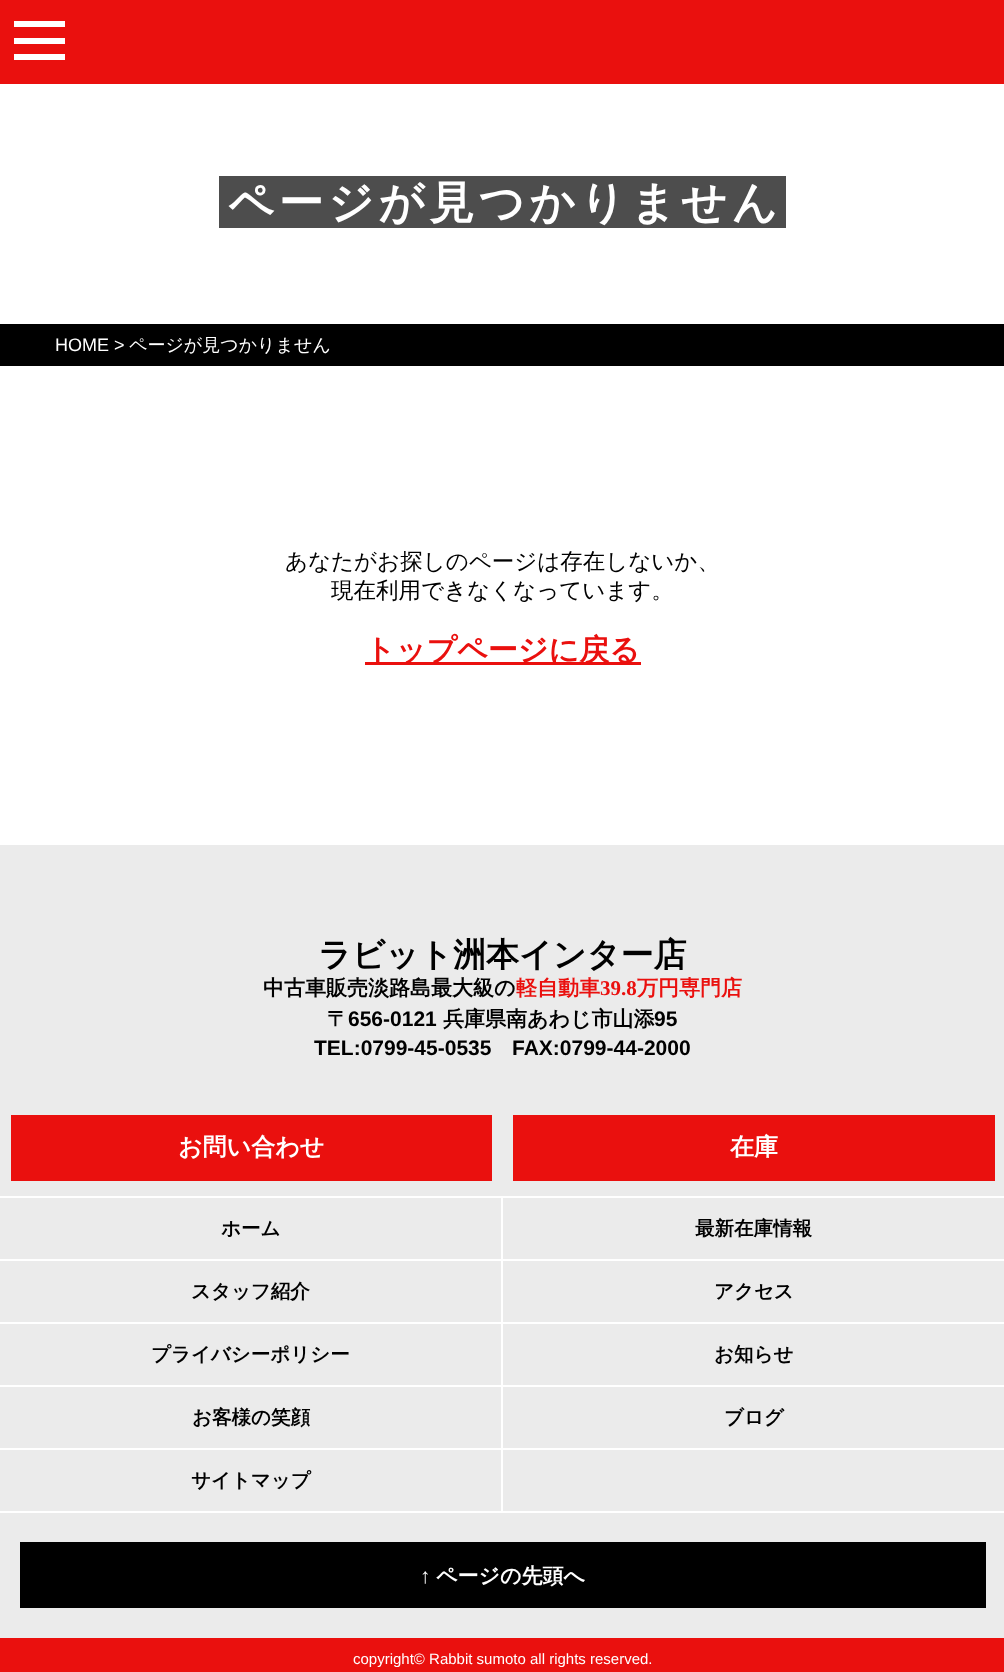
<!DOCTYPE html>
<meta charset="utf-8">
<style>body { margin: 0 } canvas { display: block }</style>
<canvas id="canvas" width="1004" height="1672"></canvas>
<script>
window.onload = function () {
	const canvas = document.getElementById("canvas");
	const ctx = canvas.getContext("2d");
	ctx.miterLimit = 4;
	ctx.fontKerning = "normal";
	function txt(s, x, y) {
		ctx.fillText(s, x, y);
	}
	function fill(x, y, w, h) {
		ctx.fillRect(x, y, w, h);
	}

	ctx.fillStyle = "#FFFFFF";
	fill(0, 0, 1004, 1672);
	ctx.fillStyle = "#EA100E";
	fill(0, 0, 1004, 84);
	ctx.fillStyle = "#FFFFFF";
	fill(14, 21, 51, 6);
	fill(14, 38, 51, 6);
	fill(14, 54, 51, 6);
	ctx.fillStyle = "#4D4D4D";
	fill(219, 176, 567, 52);
	ctx.fillStyle = "#000000";
	fill(0, 324, 1004, 42);
	ctx.fillStyle = "#EA100E";
	fill(365, 662, 276, 3);
	ctx.fillStyle = "#EBEBEB";
	fill(0, 845, 1004, 793);
	ctx.fillStyle = "#EA100E";
	fill(11, 1115, 481, 66);
	fill(513, 1115, 482, 66);
	ctx.fillStyle = "#FFFFFF";
	fill(0, 1511, 1004, 2);
	fill(0, 1196, 1004, 2);
	fill(501, 1196, 2, 63);
	fill(0, 1259, 1004, 2);
	fill(501, 1259, 2, 63);
	fill(0, 1322, 1004, 2);
	fill(501, 1322, 2, 63);
	fill(0, 1385, 1004, 2);
	fill(501, 1385, 2, 63);
	fill(0, 1448, 1004, 2);
	fill(501, 1448, 2, 63);
	ctx.fillStyle = "#000000";
	fill(20, 1542, 966, 66);
	ctx.fillStyle = "#EA100E";
	fill(0, 1638, 1004, 34);
	ctx.letterSpacing = "4.5px";
	ctx.font = "bold 45px WenQuanYi Zen Hei";
	ctx.fillStyle = "#FFFFFF";
	txt("ページが見つかりません", 228, 218);
	ctx.letterSpacing = "0px";
	ctx.font = "18px Liberation Sans";
	txt("HOME >", 55, 351);
	ctx.font = "500 18px WenQuanYi Zen Hei";
	txt("ページが見つかりません", 129, 351);
	ctx.font = "500 22.5px WenQuanYi Zen Hei";
	ctx.fillStyle = "#000000";
	txt("あなたがお探しのページは存在しないか、", 285, 569);
	txt("現在利用できなくなっています。", 331, 598);
	ctx.font = "bold 30px WenQuanYi Zen Hei";
	ctx.fillStyle = "#EA100E";
	txt("トップページに戻る", 365, 660);
	ctx.font = "bold 33px WenQuanYi Zen Hei";
	ctx.fillStyle = "#000000";
	txt("ラビット洲本インター店", 318, 966);
	ctx.font = "bold 21px WenQuanYi Zen Hei";
	txt("中古車販売淡路島最大級の", 263, 995);
	ctx.fillStyle = "#EA100E";
	txt("軽自動車", 516, 995);
	ctx.font = "bold 21px Liberation Serif";
	txt("39.8", 600, 995);
	ctx.font = "bold 21px WenQuanYi Zen Hei";
	txt("万円専門店", 637, 995);
	ctx.fillStyle = "#000000";
	txt("〒", 327, 1026);
	ctx.font = "bold 21px Liberation Sans";
	txt("656-0121", 348, 1026);
	ctx.font = "bold 21px WenQuanYi Zen Hei";
	txt("兵庫県南あわじ市山添", 443, 1026);
	ctx.font = "bold 21px Liberation Sans";
	txt("95", 654, 1026);
	txt("TEL:0799-45-0535", 314, 1055);
	txt("FAX:0799-44-2000", 512, 1055);
	ctx.font = "bold 24px WenQuanYi Zen Hei";
	ctx.fillStyle = "#FFFFFF";
	txt("お問い合わせ", 178, 1155);
	txt("在庫", 730, 1155);
	ctx.font = "bold 19.5px WenQuanYi Zen Hei";
	ctx.fillStyle = "#000000";
	txt("ホーム", 221, 1235);
	txt("最新在庫情報", 695, 1235);
	txt("スタッフ紹介", 191, 1298);
	txt("アクセス", 714, 1298);
	txt("プライバシーポリシー", 151, 1361);
	txt("お知らせ", 714, 1361);
	txt("お客様の笑顔", 192, 1424);
	txt("ブログ", 724, 1424);
	txt("サイトマップ", 191, 1487);
	ctx.font = "bold 21px Liberation Sans";
	ctx.fillStyle = "#FFFFFF";
	txt("↑", 420, 1583);
	ctx.font = "bold 21px WenQuanYi Zen Hei";
	txt("ページの先頭へ", 436, 1583);
	ctx.font = "15px Liberation Sans";
	txt("copyright© Rabbit sumoto all rights reserved.", 353, 1664);
};
</script>
